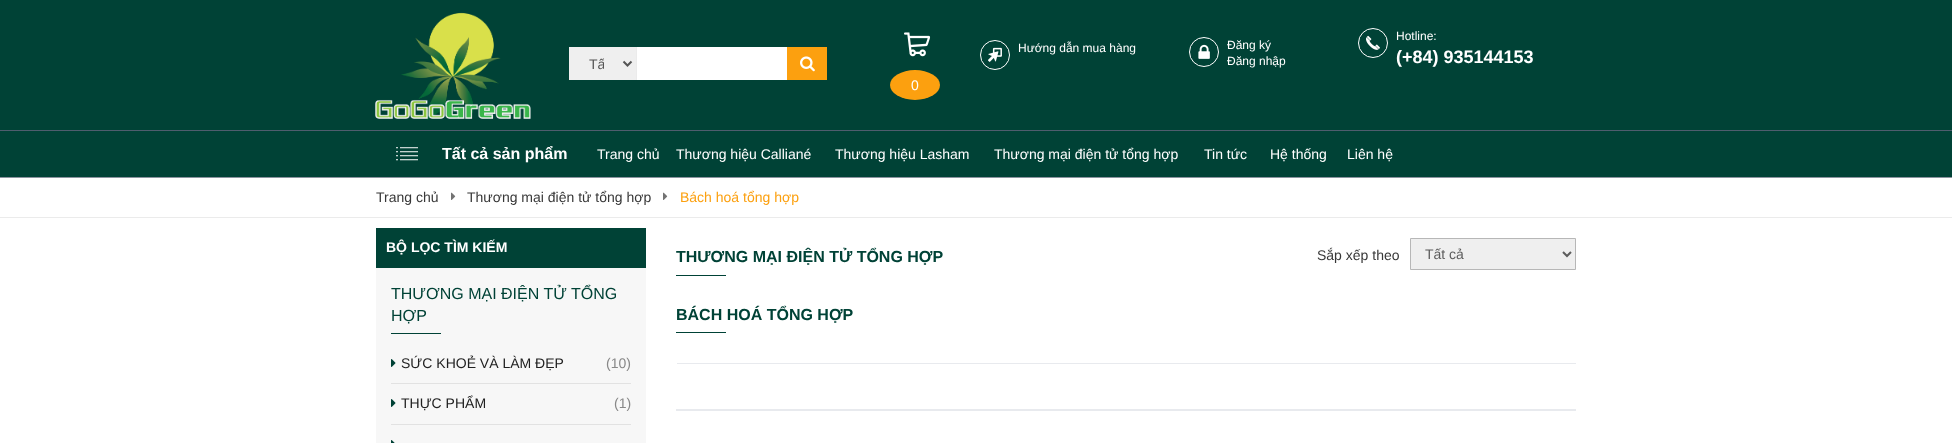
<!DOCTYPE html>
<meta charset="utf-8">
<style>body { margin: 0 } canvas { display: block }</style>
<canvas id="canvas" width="1952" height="443"></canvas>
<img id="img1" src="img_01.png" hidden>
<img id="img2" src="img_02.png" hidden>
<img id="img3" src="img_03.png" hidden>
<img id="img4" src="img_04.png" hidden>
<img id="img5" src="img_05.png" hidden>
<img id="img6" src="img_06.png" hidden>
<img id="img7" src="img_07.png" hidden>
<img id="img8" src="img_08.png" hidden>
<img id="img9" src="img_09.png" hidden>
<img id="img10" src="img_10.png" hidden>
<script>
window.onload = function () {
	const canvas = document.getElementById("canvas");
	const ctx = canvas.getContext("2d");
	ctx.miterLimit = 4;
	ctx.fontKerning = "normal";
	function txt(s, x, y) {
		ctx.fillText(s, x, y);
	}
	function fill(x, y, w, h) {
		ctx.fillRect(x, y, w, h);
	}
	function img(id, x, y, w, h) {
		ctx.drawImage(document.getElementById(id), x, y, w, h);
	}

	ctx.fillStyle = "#FFFFFF";
	fill(0, 0, 1952, 443);
	ctx.fillStyle = "#004236";
	fill(0, 0, 1952, 130);
	ctx.fillStyle = "#4F5D6E";
	fill(0, 130, 1952, 1);
	img("img1", 375, 12, 156, 108);
	ctx.fillStyle = "#EFEFEF";
	fill(569, 47, 67, 33);
	ctx.fillStyle = "#EBEBEB";
	fill(636, 47, 1, 33);
	ctx.beginPath();
	ctx.moveTo(623.5, 61.5);
	ctx.lineTo(627.5, 65.5);
	ctx.lineTo(631.5, 61.5);
	ctx.strokeStyle = "#555555";
	ctx.lineWidth = 2;
	ctx.stroke();
	ctx.fillStyle = "#FFFFFF";
	fill(637, 47, 150, 33);
	ctx.fillStyle = "#FCA00F";
	fill(787, 47, 40, 33);
	img("img2", 800, 56, 15, 16);
	ctx.beginPath();
	ctx.arc(995, 55, 14.5, 0, Math.PI * 2);
	ctx.strokeStyle = "#FFFFFF";
	ctx.lineWidth = 1;
	ctx.stroke();
	img("img3", 988, 47, 14, 15);
	ctx.beginPath();
	ctx.arc(1204, 52, 14.5, 0, Math.PI * 2);
	ctx.stroke();
	img("img4", 1198, 44, 12, 15);
	ctx.beginPath();
	ctx.arc(1373, 43, 14.5, 0, Math.PI * 2);
	ctx.stroke();
	img("img5", 1366, 35, 14, 15);
	img("img6", 904, 32, 27, 25);
	ctx.beginPath();
	ctx.ellipse(915, 85, 25, 15, 0, 0, Math.PI * 2);
	ctx.fill();
	ctx.fillStyle = "#004236";
	fill(0, 131, 1952, 46);
	ctx.fillStyle = "#8A939E";
	fill(0, 177, 1952, 1);
	img("img7", 396, 147, 22, 14);
	ctx.fillStyle = "#EBEBEB";
	fill(0, 217, 1952, 1);
	img("img8", 451, 192, 5, 8);
	img("img8", 663, 192, 5, 8);
	ctx.fillStyle = "#F7F7F7";
	fill(376, 268, 270, 175);
	ctx.fillStyle = "#004236";
	fill(376, 228, 270, 40);
	fill(391, 333, 50, 1);
	ctx.fillStyle = "#E2E2E2";
	fill(391, 383, 240, 1);
	img("img9", 391, 359, 5, 8);
	fill(391, 424, 240, 1);
	img("img9", 391, 399, 5, 8);
	img("img10", 391, 440, 4, 3);
	ctx.fillStyle = "#004236";
	fill(676, 275, 50, 1);
	ctx.fillStyle = "#EFEFEF";
	ctx.beginPath();
	ctx.rect(1410.5, 238.5, 165, 31);
	ctx.fill();
	ctx.strokeStyle = "#B7B7B7";
	ctx.stroke();
	ctx.beginPath();
	ctx.moveTo(1563, 252);
	ctx.lineTo(1567, 256);
	ctx.lineTo(1571, 252);
	ctx.strokeStyle = "#5C5C5C";
	ctx.lineWidth = 2;
	ctx.stroke();
	ctx.fillStyle = "#E8EAEE";
	fill(676, 409, 900, 2);
	ctx.fillStyle = "#004236";
	fill(676, 332, 50, 1);
	ctx.fillStyle = "#E8EAEE";
	fill(677, 363, 899, 1);
	ctx.save();
	ctx.beginPath();
	ctx.rect(589, 55, 15, 18);
	ctx.clip();
	ctx.font = "14px Liberation Sans";
	ctx.fillStyle = "#555555";
	txt("Tấ", 589, 69);
	ctx.restore();
	ctx.font = "12px Liberation Sans";
	ctx.fillStyle = "#FFFFFF";
	txt("Hướng dẫn mua hàng", 1018, 52);
	txt("Đăng ký", 1227, 49);
	txt("Đăng nhập", 1227, 65);
	txt("Hotline:", 1396, 40);
	ctx.font = "bold 18px Liberation Sans";
	txt("(+84) 935144153", 1396, 63);
	ctx.font = "14px Liberation Sans";
	txt("0", 911, 90);
	ctx.font = "bold 16px Liberation Sans";
	txt("Tất cả sản phẩm", 442, 159);
	ctx.font = "14px Liberation Sans";
	txt("Trang chủ", 597, 159);
	txt("Thương hiệu Calliané", 676, 159);
	txt("Thương hiệu Lasham", 835, 159);
	txt("Thương mại điện tử tổng hợp", 994, 159);
	txt("Tin tức", 1204, 159);
	txt("Hệ thống", 1270, 159);
	txt("Liên hệ", 1347, 159);
	ctx.fillStyle = "#373737";
	txt("Trang chủ", 376, 202);
	txt("Thương mại điện tử tổng hợp", 467, 202);
	ctx.fillStyle = "#FCA00F";
	txt("Bách hoá tổng hợp", 680, 202);
	ctx.font = "bold 14px Liberation Sans";
	ctx.fillStyle = "#FFFFFF";
	txt("BỘ LỌC TÌM KIẾM", 386, 252);
	ctx.font = "16px Liberation Sans";
	ctx.fillStyle = "#004236";
	txt("THƯƠNG MẠI ĐIỆN TỬ TỔNG", 391, 299);
	txt("HỢP", 391, 321);
	ctx.font = "14px Liberation Sans";
	ctx.fillStyle = "#212121";
	txt("SỨC KHOẺ VÀ LÀM ĐẸP", 401, 368);
	ctx.fillStyle = "#888888";
	txt("(10)", 606, 368);
	ctx.fillStyle = "#212121";
	txt("THỰC PHẨM", 401, 408);
	ctx.fillStyle = "#888888";
	txt("(1)", 614, 408);
	ctx.font = "bold 16px Liberation Sans";
	ctx.fillStyle = "#004236";
	txt("THƯƠNG MẠI ĐIỆN TỬ TỔNG HỢP", 676, 262);
	ctx.font = "14px Liberation Sans";
	ctx.fillStyle = "#373737";
	txt("Sắp xếp theo", 1317, 260);
	ctx.fillStyle = "#5C5C5C";
	txt("Tất cả", 1425, 259);
	ctx.font = "bold 16px Liberation Sans";
	ctx.fillStyle = "#004236";
	txt("BÁCH HOÁ TỔNG HỢP", 676, 320);
};
</script>
